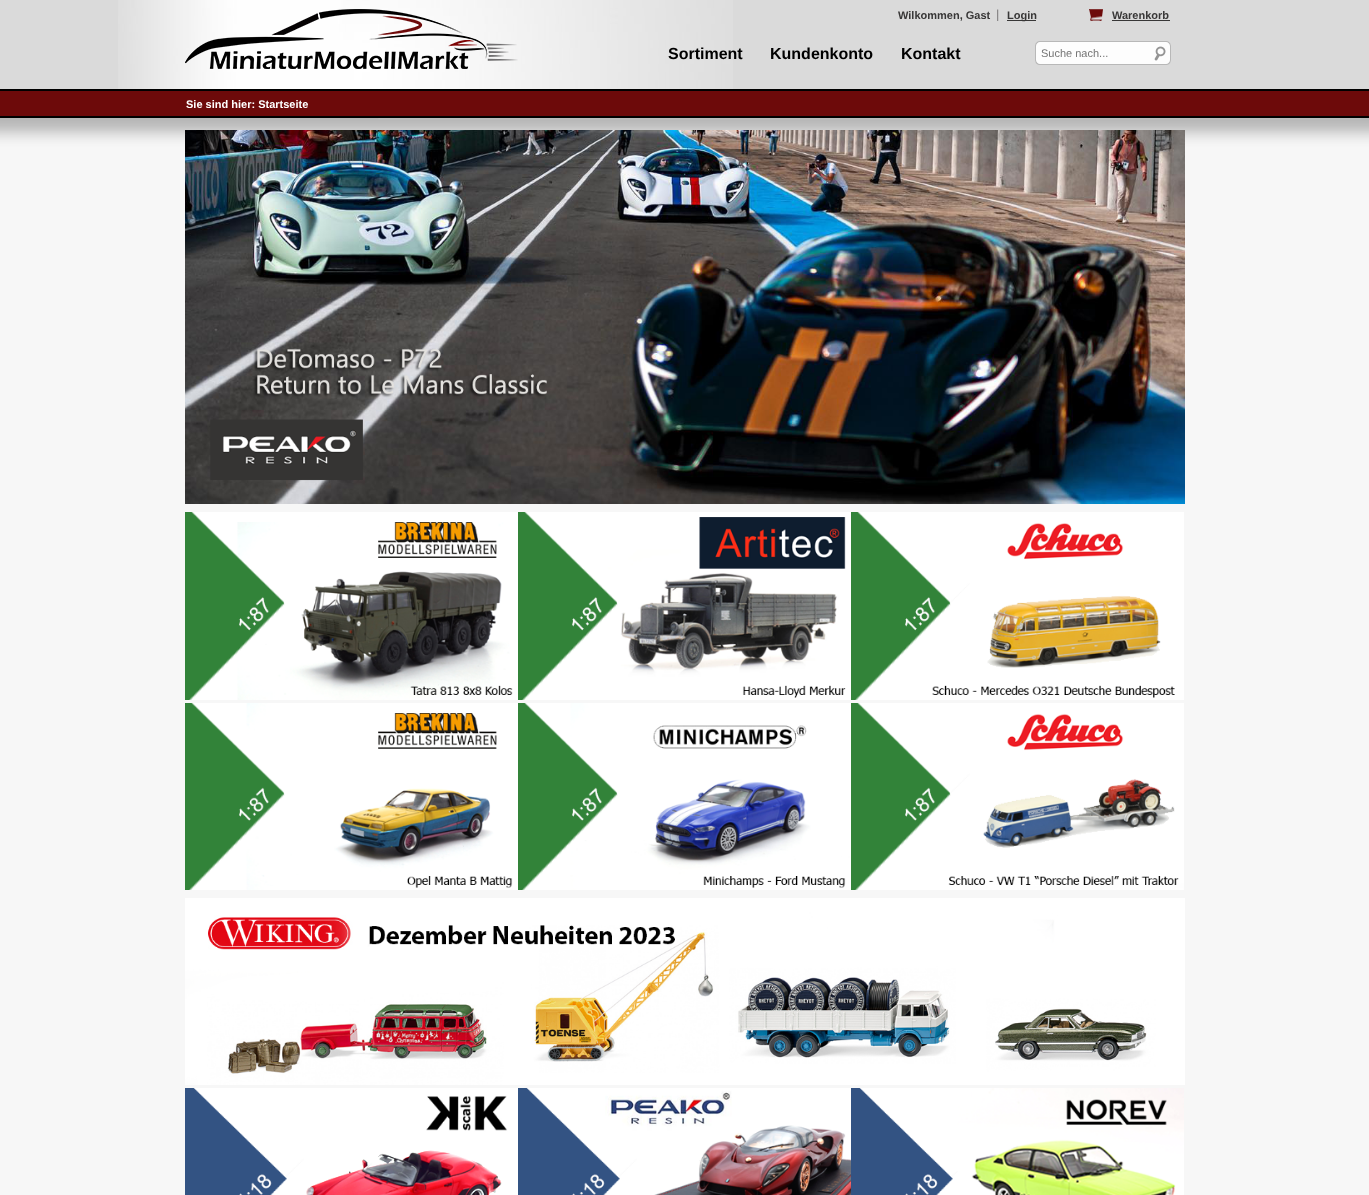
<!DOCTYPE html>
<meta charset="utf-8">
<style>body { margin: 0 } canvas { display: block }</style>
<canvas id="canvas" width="1369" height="1195"></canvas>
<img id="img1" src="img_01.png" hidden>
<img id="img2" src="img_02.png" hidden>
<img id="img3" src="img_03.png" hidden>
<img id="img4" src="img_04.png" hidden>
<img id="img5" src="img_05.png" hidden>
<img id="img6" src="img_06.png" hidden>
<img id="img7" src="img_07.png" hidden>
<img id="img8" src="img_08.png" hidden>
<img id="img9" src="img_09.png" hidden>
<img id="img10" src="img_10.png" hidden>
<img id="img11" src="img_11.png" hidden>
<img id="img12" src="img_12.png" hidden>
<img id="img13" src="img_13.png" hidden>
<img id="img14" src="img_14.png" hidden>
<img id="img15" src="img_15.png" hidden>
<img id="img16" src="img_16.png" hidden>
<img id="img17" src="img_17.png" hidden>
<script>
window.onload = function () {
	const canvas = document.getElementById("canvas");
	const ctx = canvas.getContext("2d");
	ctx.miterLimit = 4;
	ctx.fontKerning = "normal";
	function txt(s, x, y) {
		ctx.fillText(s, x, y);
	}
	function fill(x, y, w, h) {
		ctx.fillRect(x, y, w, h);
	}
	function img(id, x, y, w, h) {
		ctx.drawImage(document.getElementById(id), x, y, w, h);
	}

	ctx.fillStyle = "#FFFFFF";
	fill(0, 0, 1369, 1195);
	ctx.fillStyle = "#DADADA";
	fill(0, 0, 1369, 89);
	img("img1", 118, 0, 615, 89);
	img("img2", 185, 9, 333, 60);
	img("img3", 997, 9, 2, 12);
	ctx.fillStyle = "#383737";
	fill(1007, 20, 29, 1);
	img("img4", 1089, 9, 14, 12);
	fill(1112, 20, 58, 1);
	ctx.fillStyle = "#FDFDFD";
	ctx.beginPath();
	ctx.roundRect(1035, 41, 116, 24, [5, 0, 0, 5]);
	ctx.fill();
	ctx.fillStyle = "#B8B8B8";
	ctx.beginPath();
	ctx.moveTo(1040, 41);
	ctx.lineTo(1151, 41);
	ctx.lineTo(1151, 65);
	ctx.lineTo(1040, 65);
	ctx.bezierCurveTo(1037, 65, 1035, 63, 1035, 60);
	ctx.lineTo(1035, 46);
	ctx.bezierCurveTo(1035, 43, 1037, 41, 1040, 41);
	ctx.closePath();
	ctx.moveTo(1040, 42);
	ctx.lineTo(1151, 42);
	ctx.lineTo(1151, 64);
	ctx.lineTo(1040, 64);
	ctx.bezierCurveTo(1038, 64, 1036, 62, 1036, 60);
	ctx.lineTo(1036, 46);
	ctx.bezierCurveTo(1036, 44, 1038, 42, 1040, 42);
	ctx.closePath();
	ctx.fill("evenodd");
	ctx.fillStyle = "#FDFDFD";
	ctx.beginPath();
	ctx.roundRect(1149, 41, 22, 24, [0, 5, 5, 0]);
	ctx.fill();
	img("img5", 1154, 46, 12, 15);
	ctx.fillStyle = "#B8B8B8";
	ctx.beginPath();
	ctx.moveTo(1149, 41);
	ctx.lineTo(1166, 41);
	ctx.bezierCurveTo(1169, 41, 1171, 43, 1171, 46);
	ctx.lineTo(1171, 60);
	ctx.bezierCurveTo(1171, 63, 1169, 65, 1166, 65);
	ctx.lineTo(1149, 65);
	ctx.closePath();
	ctx.moveTo(1149, 42);
	ctx.lineTo(1166, 42);
	ctx.bezierCurveTo(1168, 42, 1170, 44, 1170, 46);
	ctx.lineTo(1170, 60);
	ctx.bezierCurveTo(1170, 62, 1168, 64, 1166, 64);
	ctx.lineTo(1149, 64);
	ctx.closePath();
	ctx.fill("evenodd");
	ctx.fillStyle = "#000000";
	fill(0, 89, 1369, 2);
	ctx.fillStyle = "#6D0A0A";
	fill(0, 91, 1369, 25);
	ctx.fillStyle = "#000000";
	fill(0, 116, 1369, 2);
	img("img6", 0, 118, 1369, 1077);
	img("img7", 185, 130, 1000, 374);
	img("img8", 185, 512, 333, 188);
	img("img9", 518, 512, 333, 188);
	img("img10", 851, 512, 333, 188);
	img("img11", 185, 703, 333, 187);
	img("img12", 518, 703, 333, 187);
	img("img13", 851, 703, 333, 187);
	img("img14", 185, 898, 1000, 187);
	img("img15", 185, 1088, 333, 107);
	img("img16", 518, 1088, 333, 107);
	img("img17", 851, 1088, 333, 107);
	ctx.font = "bold 11px Liberation Sans";
	ctx.fillStyle = "#383737";
	txt("Wilkommen, Gast", 898, 19);
	txt("Login", 1007, 19);
	txt("Warenkorb", 1112, 19);
	ctx.font = "bold 16px Liberation Sans";
	ctx.fillStyle = "#000000";
	txt("Sortiment", 668, 59);
	txt("Kundenkonto", 770, 59);
	txt("Kontakt", 901, 59);
	ctx.font = "11px Liberation Sans";
	ctx.fillStyle = "#757575";
	txt("Suche nach...", 1041, 57);
	ctx.font = "bold 11px Liberation Sans";
	ctx.fillStyle = "#FFFFFF";
	txt("Sie sind hier: Startseite", 186, 108);
};
</script>
